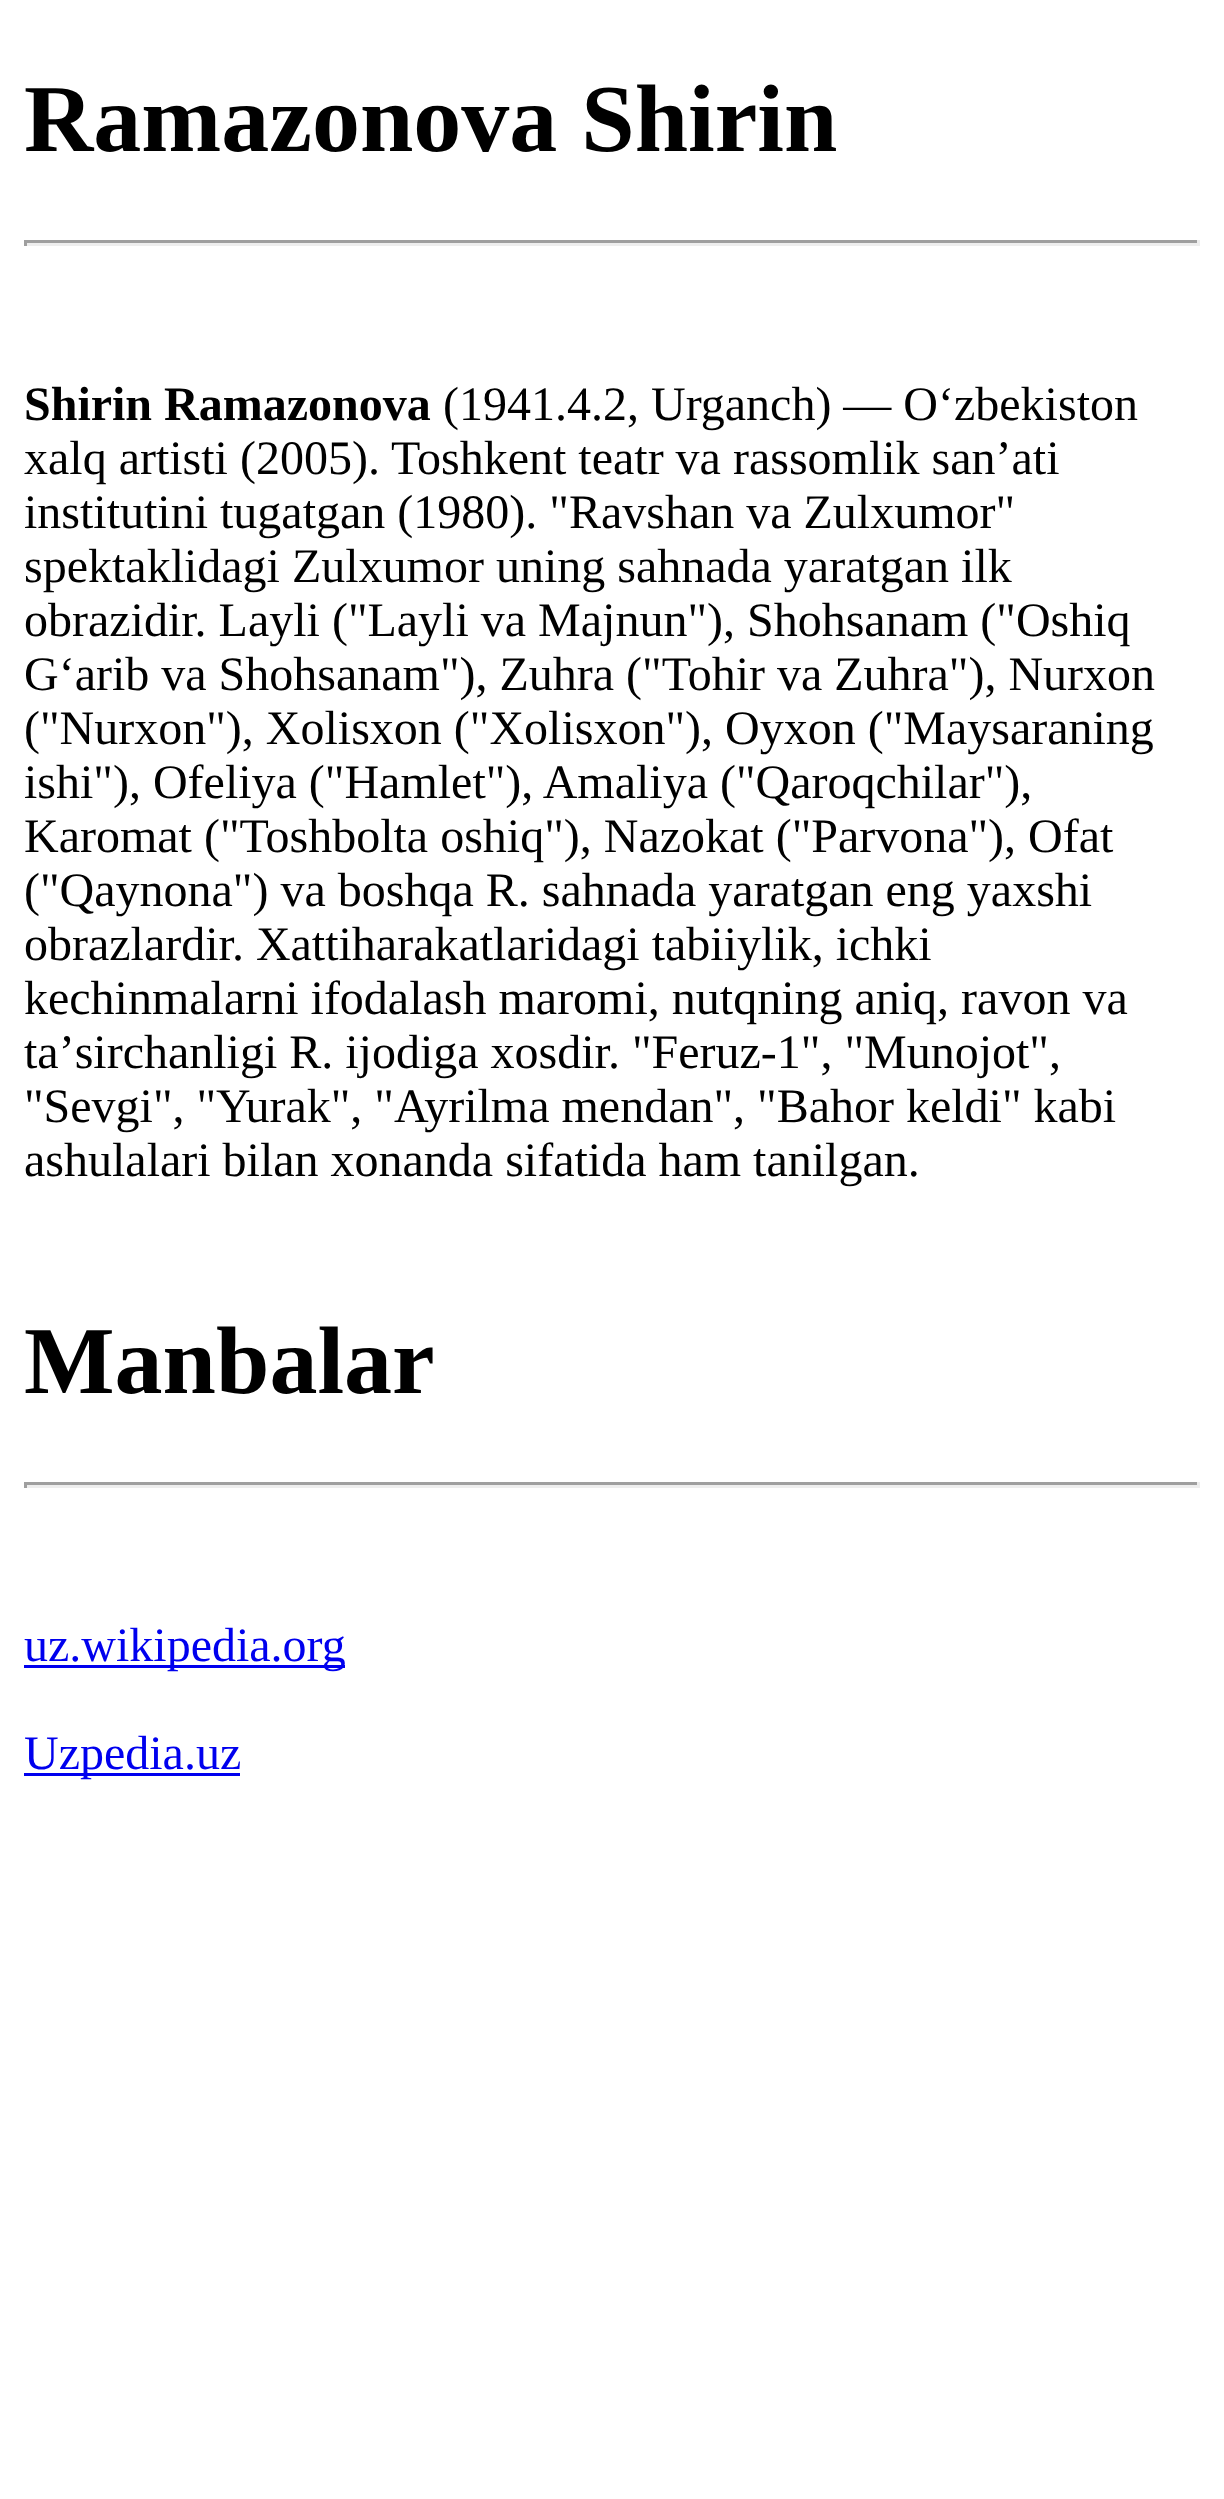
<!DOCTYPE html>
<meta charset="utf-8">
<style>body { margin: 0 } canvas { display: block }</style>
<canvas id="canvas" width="1224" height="2499"></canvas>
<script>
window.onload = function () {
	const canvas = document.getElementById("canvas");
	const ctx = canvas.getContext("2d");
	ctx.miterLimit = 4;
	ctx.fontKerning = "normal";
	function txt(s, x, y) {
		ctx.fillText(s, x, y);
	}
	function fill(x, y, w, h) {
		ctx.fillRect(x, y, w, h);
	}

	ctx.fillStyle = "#FFFFFF";
	fill(0, 0, 1224, 2499);
	ctx.fillStyle = "#9F9F9F";
	fill(24, 240, 1176, 3);
	ctx.fillStyle = "#EEEEEE";
	fill(1197, 240, 3, 6);
	fill(24, 243, 1176, 3);
	ctx.fillStyle = "#9F9F9F";
	fill(24, 240, 3, 6);
	fill(24, 1482, 1176, 3);
	ctx.fillStyle = "#EEEEEE";
	fill(1197, 1482, 3, 6);
	fill(24, 1485, 1176, 3);
	ctx.fillStyle = "#9F9F9F";
	fill(24, 1482, 3, 6);
	ctx.fillStyle = "#0000EE";
	fill(24, 1665, 321, 3);
	fill(24, 1773, 216, 3);
	ctx.font = "bold 96px Liberation Serif";
	ctx.fillStyle = "#000000";
	txt("Ramazonova Shirin", 24, 151);
	ctx.font = "bold 48px Liberation Serif";
	txt("Shirin Ramazonova", 24, 420);
	ctx.font = "48px Liberation Serif";
	txt("(1941.4.2, Urganch) — Oʻzbekiston", 443, 420);
	txt("xalq artisti (2005). Toshkent teatr va rassomlik sanʼati", 24, 474);
	txt("institutini tugatgan (1980). \"Ravshan va Zulxumor\"", 24, 528);
	txt("spektaklidagi Zulxumor uning sahnada yaratgan ilk", 24, 582);
	txt("obrazidir. Layli (\"Layli va Majnun\"), Shohsanam (\"Oshiq", 24, 636);
	txt("Gʻarib va Shohsanam\"), Zuhra (\"Tohir va Zuhra\"), Nurxon", 24, 690);
	txt("(\"Nurxon\"), Xolisxon (\"Xolisxon\"), Oyxon (\"Maysaraning", 24, 744);
	txt("ishi\"), Ofeliya (\"Hamlet\"), Amaliya (\"Qaroqchilar\"),", 24, 798);
	txt("Karomat (\"Toshbolta oshiq\"), Nazokat (\"Parvona\"), Ofat", 24, 852);
	txt("(\"Qaynona\") va boshqa R. sahnada yaratgan eng yaxshi", 24, 906);
	txt("obrazlardir. Xattiharakatlaridagi tabiiylik, ichki", 24, 960);
	txt("kechinmalarni ifodalash maromi, nutqning aniq, ravon va", 24, 1014);
	txt("taʼsirchanligi R. ijodiga xosdir. \"Feruz-1\", \"Munojot\",", 24, 1068);
	txt("\"Sevgi\", \"Yurak\", \"Ayrilma mendan\", \"Bahor keldi\" kabi", 24, 1122);
	txt("ashulalari bilan xonanda sifatida ham tanilgan.", 24, 1176);
	ctx.font = "bold 96px Liberation Serif";
	txt("Manbalar", 24, 1393);
	ctx.font = "48px Liberation Serif";
	ctx.fillStyle = "#0000EE";
	txt("uz.wikipedia.org", 24, 1661);
	txt("Uzpedia.uz", 24, 1769);
};
</script>
